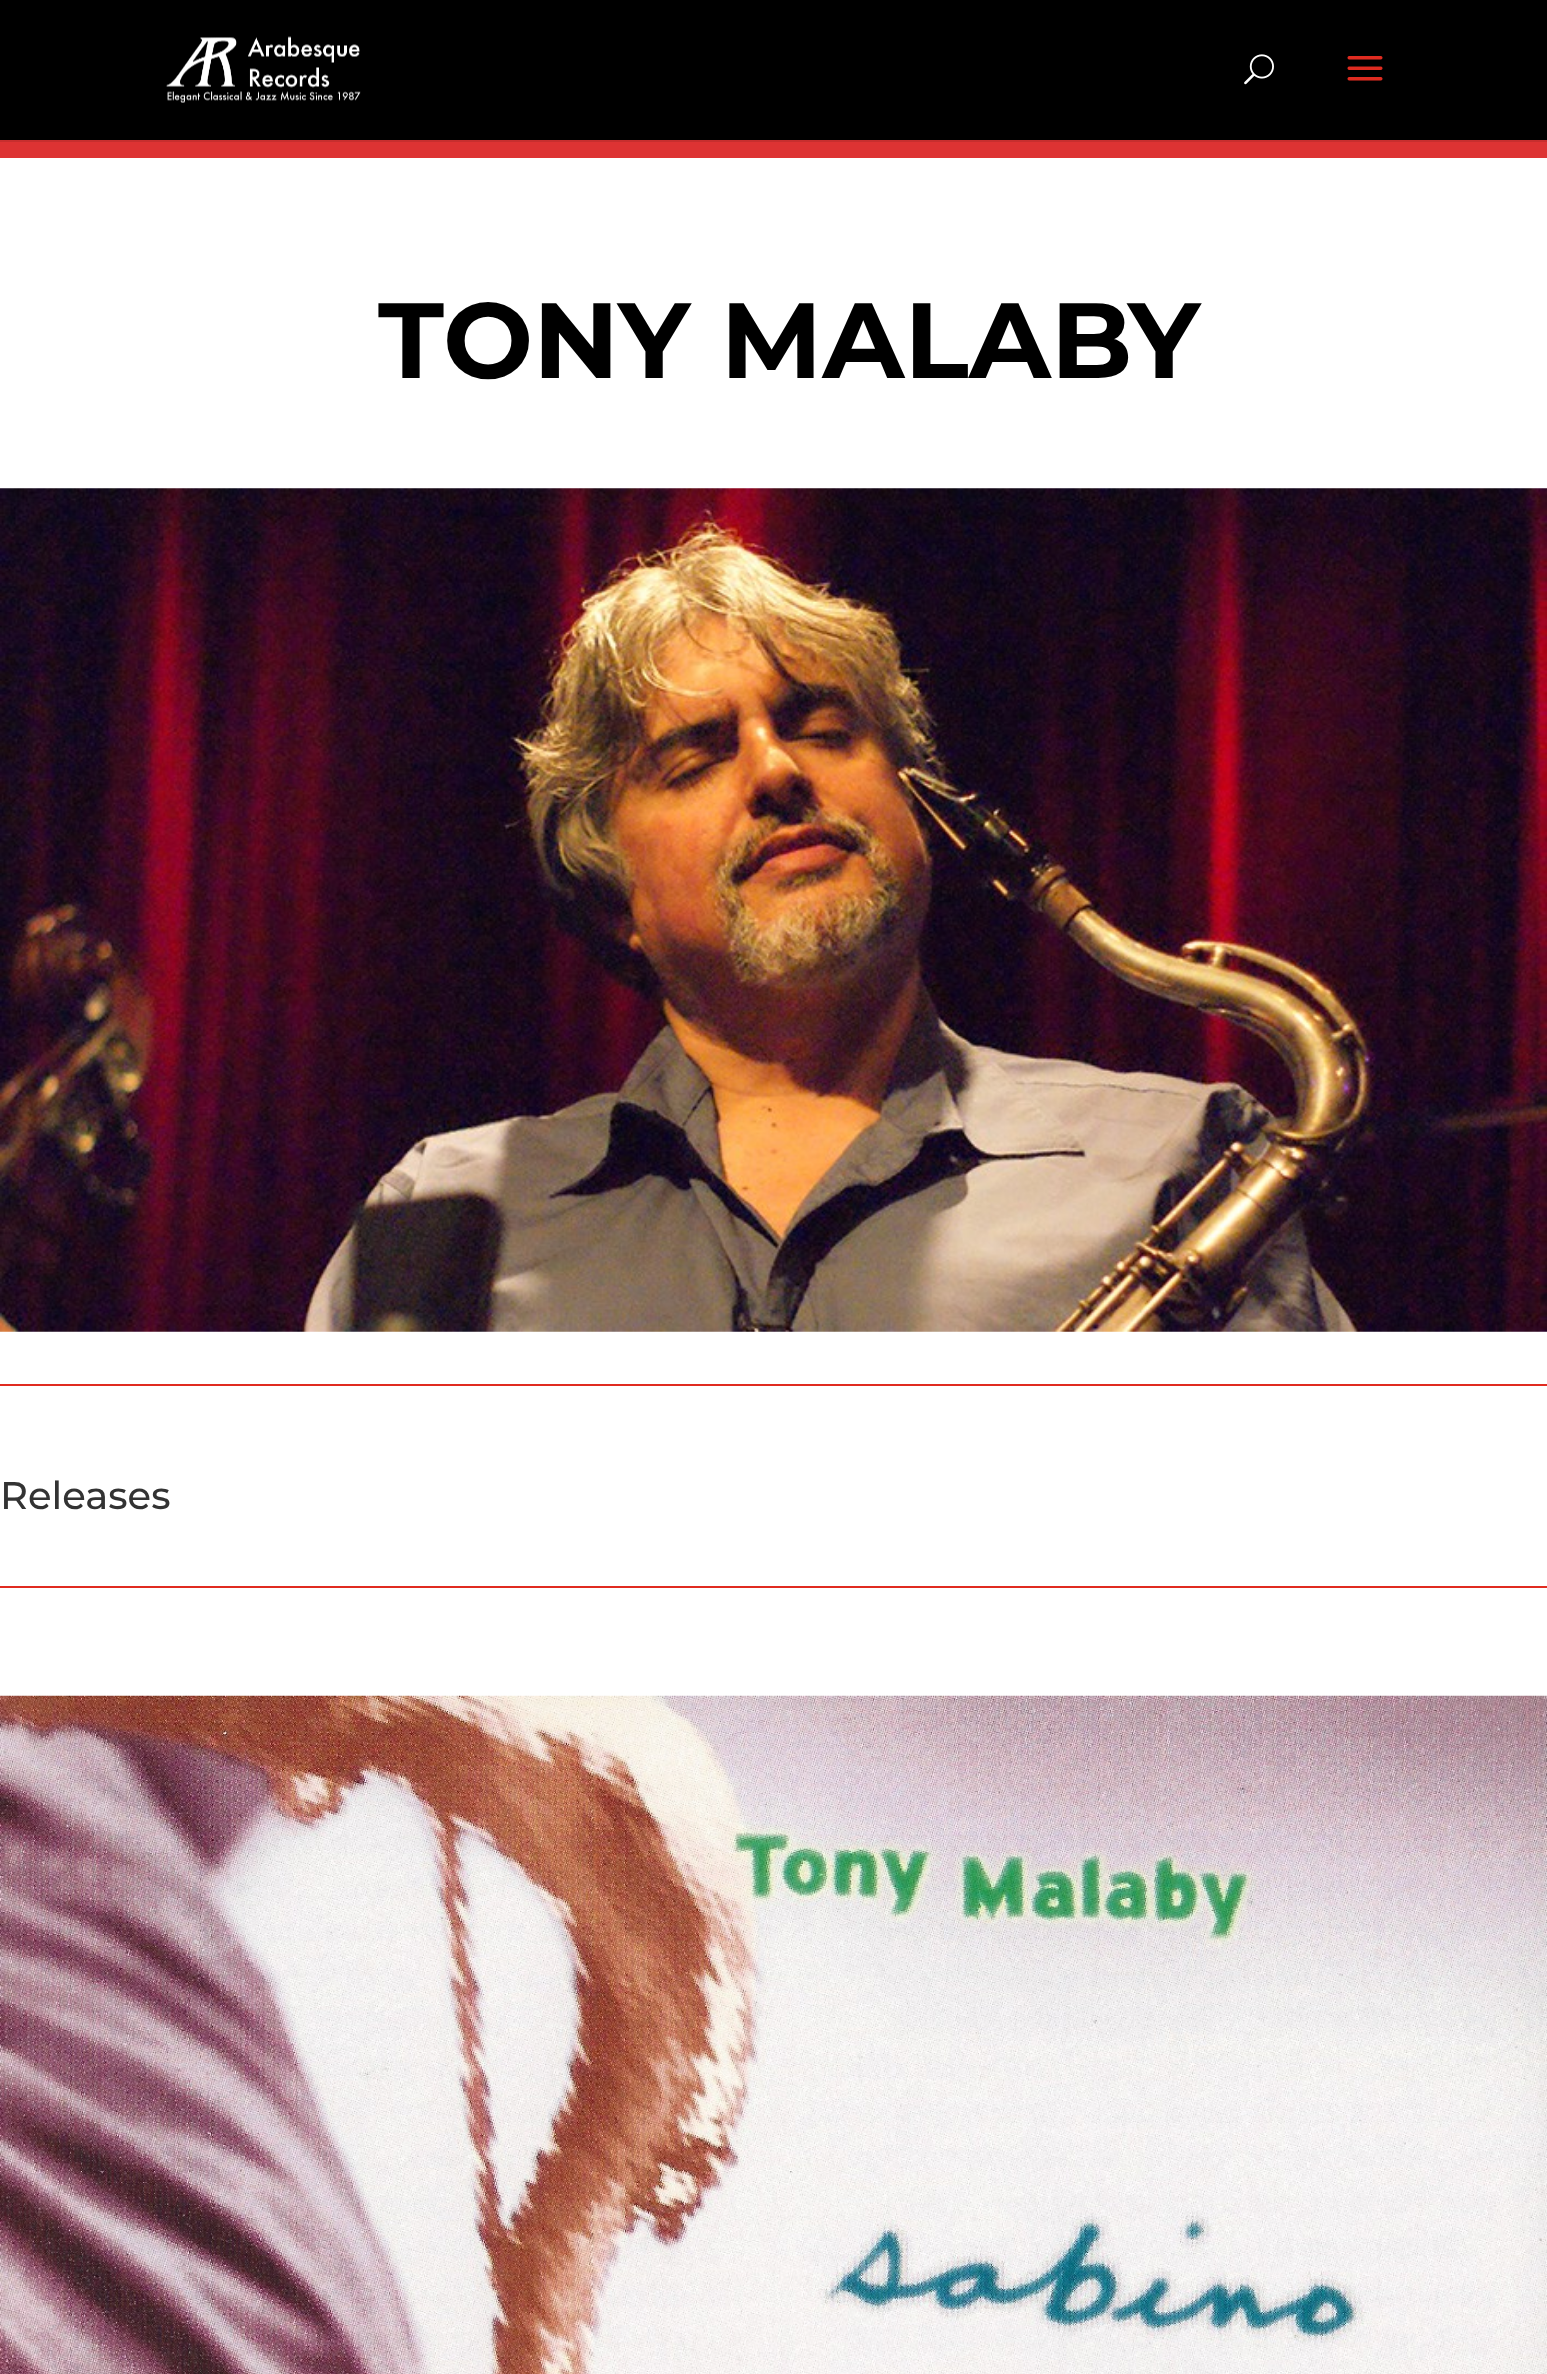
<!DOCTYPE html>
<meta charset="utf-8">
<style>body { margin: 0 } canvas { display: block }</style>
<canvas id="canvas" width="1547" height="2374"></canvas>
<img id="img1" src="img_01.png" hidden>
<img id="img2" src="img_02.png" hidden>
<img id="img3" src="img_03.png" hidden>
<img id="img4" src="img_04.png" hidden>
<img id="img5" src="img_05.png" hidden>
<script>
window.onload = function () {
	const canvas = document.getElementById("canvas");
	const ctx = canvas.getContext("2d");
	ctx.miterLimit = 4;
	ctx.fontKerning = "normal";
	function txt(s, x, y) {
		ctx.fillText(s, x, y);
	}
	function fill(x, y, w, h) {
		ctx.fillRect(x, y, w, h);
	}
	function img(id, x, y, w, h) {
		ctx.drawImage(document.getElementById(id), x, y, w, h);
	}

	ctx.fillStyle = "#DD3333";
	fill(0, 0, 1547, 2374);
	ctx.fillStyle = "#C72E2E";
	fill(0, 140, 1547, 2);
	ctx.fillStyle = "#000000";
	fill(0, 0, 1547, 140);
	img("img1", 166, 36, 195, 67);
	img("img2", 1244, 54, 30, 31);
	img("img3", 1347, 56, 36, 25);
	ctx.fillStyle = "#FFFFFF";
	fill(0, 158, 1547, 1538);
	img("img4", 0, 488, 1547, 844);
	ctx.fillStyle = "#E02B20";
	fill(0, 1384, 1547, 2);
	fill(0, 1586, 1547, 2);
	img("img5", 0, 1695, 1547, 679);
	ctx.font = "bold 106.75px Montserrat";
	ctx.fillStyle = "#000000";
	txt("TONY MALABY", 378, 378);
	ctx.font = "500 38.5px Montserrat";
	ctx.fillStyle = "#333333";
	txt("Releases", 0, 1509);
};
</script>
